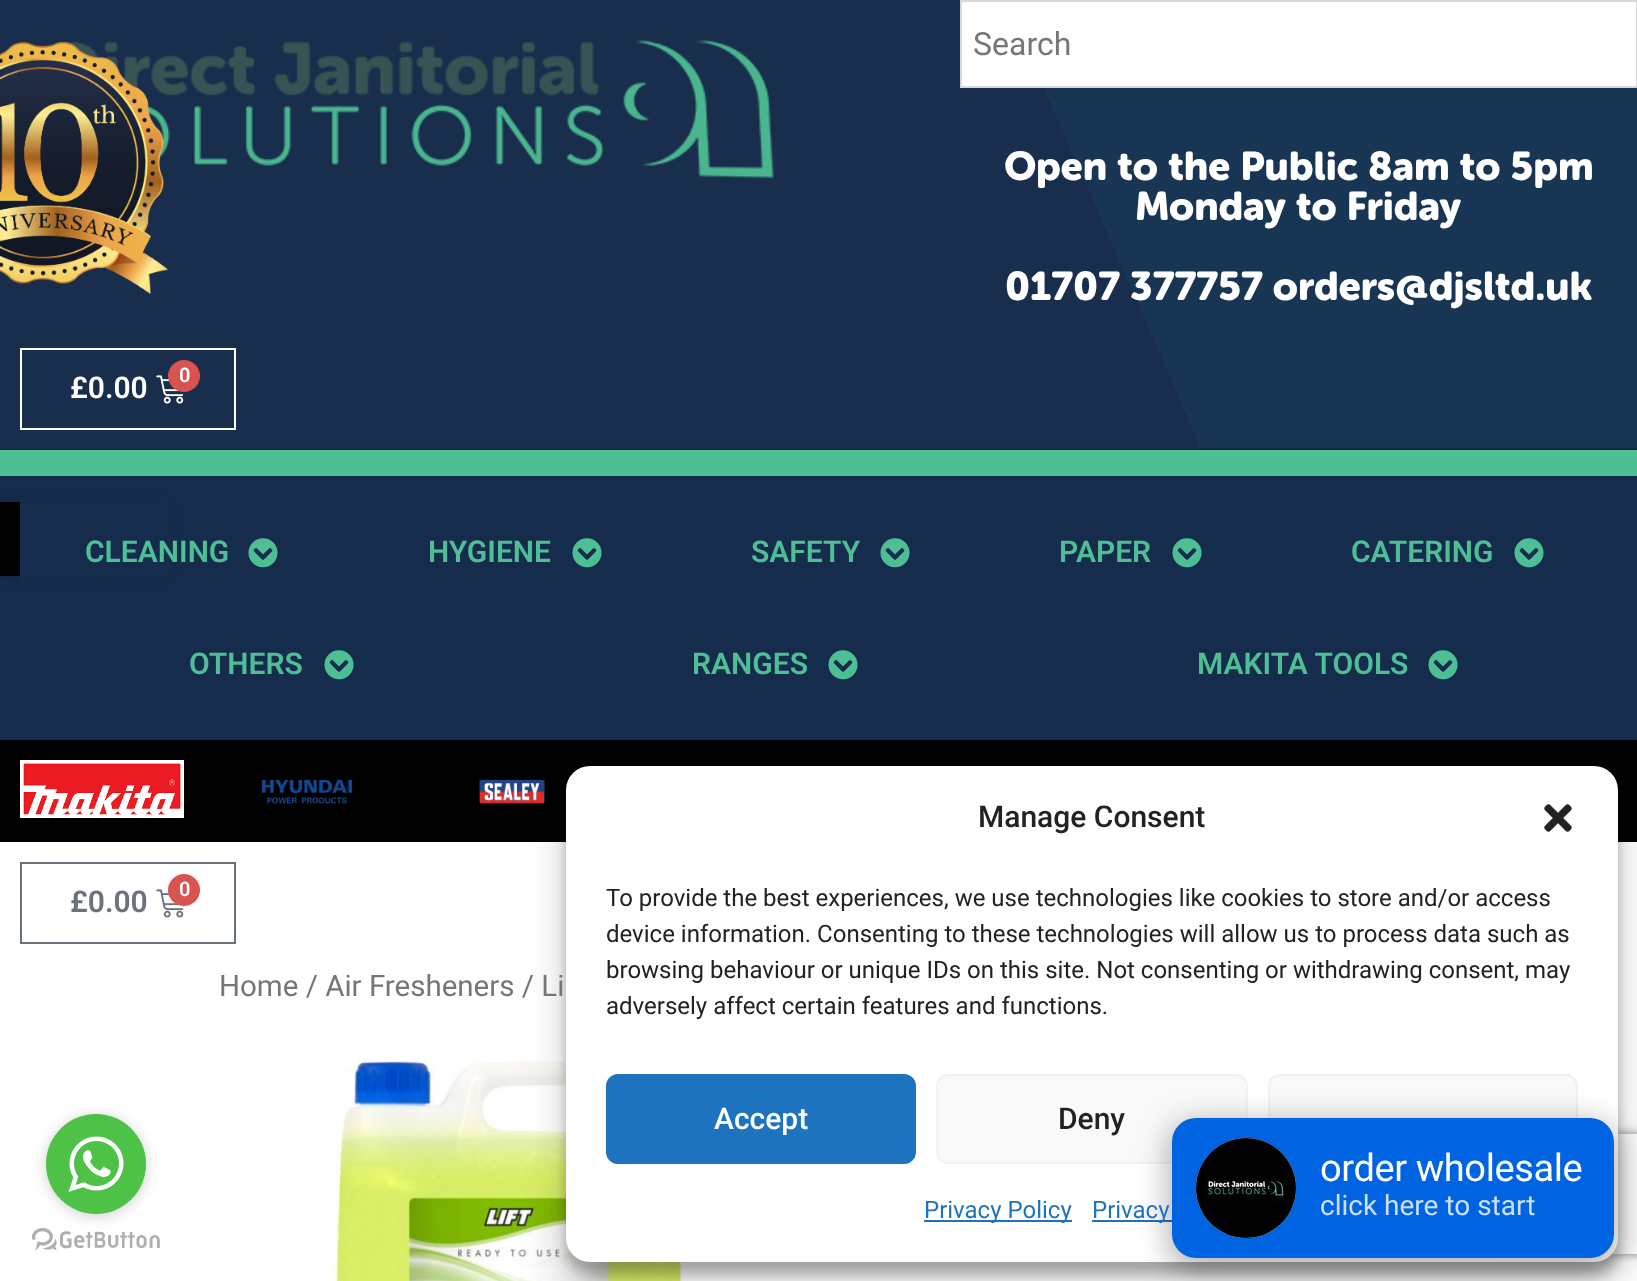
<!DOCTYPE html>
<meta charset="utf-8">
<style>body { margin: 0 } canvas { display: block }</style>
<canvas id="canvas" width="1637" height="1281"></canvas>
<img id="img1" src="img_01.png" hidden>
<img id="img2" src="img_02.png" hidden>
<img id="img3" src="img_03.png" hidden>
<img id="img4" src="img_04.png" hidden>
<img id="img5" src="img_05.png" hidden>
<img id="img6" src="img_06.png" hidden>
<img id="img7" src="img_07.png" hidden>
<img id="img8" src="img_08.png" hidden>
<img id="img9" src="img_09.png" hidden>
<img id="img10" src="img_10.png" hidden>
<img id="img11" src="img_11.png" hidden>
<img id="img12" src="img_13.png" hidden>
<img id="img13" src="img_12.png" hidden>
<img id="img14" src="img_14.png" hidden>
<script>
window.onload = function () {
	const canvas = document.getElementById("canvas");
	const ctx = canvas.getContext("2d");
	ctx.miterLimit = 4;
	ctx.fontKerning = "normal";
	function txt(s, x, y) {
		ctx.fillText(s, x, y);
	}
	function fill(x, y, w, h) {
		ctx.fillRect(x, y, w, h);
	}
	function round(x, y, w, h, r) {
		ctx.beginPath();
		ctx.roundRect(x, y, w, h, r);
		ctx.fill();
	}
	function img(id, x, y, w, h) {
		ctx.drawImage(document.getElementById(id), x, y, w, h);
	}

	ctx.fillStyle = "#FFFFFF";
	fill(0, 0, 1637, 1281);
	ctx.fillStyle = "#0E1D3A";
	fill(0, 448, 1637, 2);
	img("img1", 0, 0, 1637, 449);
	ctx.fillStyle = "#4EBF95";
	fill(0, 450, 1637, 26);
	img("img2", 54, 40, 720, 139);
	img("img3", 0, 42, 168, 252);
	ctx.fillStyle = "#FFFFFF";
	ctx.beginPath();
	ctx.rect(961, 1, 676, 86);
	ctx.fill();
	ctx.strokeStyle = "#D8D8D8";
	ctx.lineWidth = 2;
	ctx.stroke();
	ctx.strokeStyle = "#FFFFFF";
	ctx.strokeRect(21, 349, 214, 80);
	img("img4", 156, 375, 28, 29);
	ctx.fillStyle = "#D9534F";
	ctx.beginPath();
	ctx.arc(184, 376, 16, 0, Math.PI * 2);
	ctx.fill();
	ctx.fillStyle = "#162C4D";
	fill(0, 476, 1637, 264);
	ctx.fillStyle = "rgba(0, 0, 0, 0.2)";
	ctx.filter = "blur(5px)";
	ctx.beginPath();
	ctx.rect(0, 502, 168, 74);
	ctx.fill();
	ctx.filter = "none";
	ctx.fillStyle = "#162C4D";
	fill(20, 497, 153, 84);
	img("img5", 248, 538, 30, 30);
	img("img5", 572, 538, 30, 30);
	img("img5", 880, 538, 30, 30);
	img("img5", 1172, 538, 30, 30);
	img("img5", 1514, 538, 30, 30);
	img("img5", 324, 650, 30, 30);
	img("img5", 828, 650, 30, 30);
	img("img5", 1428, 650, 30, 30);
	ctx.fillStyle = "#000000";
	fill(0, 740, 1637, 102);
	img("img6", 20, 760, 164, 58);
	img("img7", 261, 779, 92, 25);
	img("img8", 479, 779, 66, 25);
	ctx.strokeStyle = "#69727D";
	ctx.strokeRect(21, 863, 214, 80);
	img("img9", 156, 889, 28, 29);
	ctx.fillStyle = "#D9534F";
	ctx.beginPath();
	ctx.arc(184, 890, 16, 0, Math.PI * 2);
	ctx.fill();
	ctx.fillStyle = "#000000";
	fill(0, 502, 20, 74);
	img("img10", 328, 1054, 355, 227);
	ctx.fillStyle = "rgba(0, 0, 0, 0.23)";
	ctx.filter = "blur(6px)";
	ctx.beginPath();
	ctx.roundRect(566, 778, 1052, 496, 24);
	ctx.fill();
	ctx.filter = "none";
	ctx.fillStyle = "rgba(0, 0, 0, 0.19)";
	ctx.filter = "blur(20px)";
	ctx.beginPath();
	ctx.roundRect(566, 786, 1052, 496, 24);
	ctx.fill();
	ctx.filter = "none";
	ctx.save();
	ctx.beginPath();
	ctx.moveTo(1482, 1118);
	ctx.lineTo(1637, 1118);
	ctx.lineTo(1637, 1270);
	ctx.lineTo(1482, 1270);
	ctx.closePath();
	ctx.moveTo(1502, 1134);
	ctx.lineTo(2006, 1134);
	ctx.bezierCurveTo(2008, 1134, 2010, 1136, 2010, 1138);
	ctx.lineTo(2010, 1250);
	ctx.bezierCurveTo(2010, 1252, 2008, 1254, 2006, 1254);
	ctx.lineTo(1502, 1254);
	ctx.bezierCurveTo(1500, 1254, 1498, 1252, 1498, 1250);
	ctx.lineTo(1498, 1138);
	ctx.bezierCurveTo(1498, 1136, 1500, 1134, 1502, 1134);
	ctx.closePath();
	ctx.clip("evenodd");
	ctx.fillStyle = "#808080";
	ctx.filter = "blur(5px)";
	ctx.beginPath();
	ctx.roundRect(1498, 1134, 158, 120, 4);
	ctx.fill();
	ctx.filter = "none";
	ctx.restore();
	ctx.fillStyle = "#FFFFFF";
	round(566, 766, 1052, 496, 24);
	img("img11", 1544, 804, 28, 28);
	ctx.fillStyle = "#1E73BE";
	ctx.beginPath();
	ctx.roundRect(607, 1075, 308, 88, 11);
	ctx.fill();
	ctx.strokeStyle = "#1E73BE";
	ctx.stroke();
	ctx.fillStyle = "#F9F9F9";
	ctx.beginPath();
	ctx.roundRect(937, 1075, 310, 88, 11);
	ctx.fill();
	ctx.strokeStyle = "#F2F2F2";
	ctx.stroke();
	ctx.beginPath();
	ctx.roundRect(1269, 1075, 308, 88, 11);
	ctx.fill();
	ctx.stroke();
	ctx.fillStyle = "#1E73BE";
	fill(924, 1220, 148, 2);
	fill(1092, 1220, 80, 2);
	img("img12", 32, 1228, 128, 22);
	ctx.fillStyle = "rgba(136, 136, 136, 0.4)";
	ctx.filter = "blur(7px)";
	ctx.beginPath();
	ctx.roundRect(46, 1116, 100, 100, 50);
	ctx.fill();
	ctx.filter = "none";
	ctx.fillStyle = "#4DC247";
	ctx.beginPath();
	ctx.arc(96, 1164, 50, 0, Math.PI * 2);
	ctx.fill();
	img("img13", 68, 1136, 56, 56);
	ctx.fillStyle = "rgba(0, 0, 0, 0.3)";
	ctx.filter = "blur(15px)";
	ctx.beginPath();
	ctx.roundRect(1168, 1122, 450, 148, 28);
	ctx.fill();
	ctx.filter = "none";
	ctx.fillStyle = "#0063E1";
	round(1172, 1118, 442, 140, 24);
	ctx.fillStyle = "#FFFFFF";
	ctx.beginPath();
	ctx.arc(1246, 1188, 50, 0, Math.PI * 2);
	ctx.fill();
	img("img14", 1196, 1138, 100, 100);
	ctx.font = "32px Roboto";
	ctx.fillStyle = "#767676";
	txt("Search", 973, 55);
	ctx.font = "bold 40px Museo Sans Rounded";
	ctx.fillStyle = "#FFFFFF";
	txt("Open to the Public 8am to 5pm", 1004, 180);
	txt("Monday to Friday", 1135, 220);
	txt("01707 377757 orders@djsltd.uk", 1005, 300);
	ctx.font = "600 30px Roboto";
	txt("£0.00", 70, 398);
	ctx.font = "600 20px Roboto";
	txt("0", 179, 382);
	ctx.font = "600 30px Roboto";
	ctx.fillStyle = "#4EBF95";
	txt("CLEANING", 85, 562);
	txt("HYGIENE", 428, 562);
	txt("SAFETY", 751, 562);
	txt("PAPER", 1059, 562);
	txt("CATERING", 1351, 562);
	txt("OTHERS", 189, 674);
	txt("RANGES", 692, 674);
	txt("MAKITA TOOLS", 1197, 674);
	ctx.fillStyle = "#69727D";
	txt("£0.00", 70, 912);
	ctx.font = "600 20px Roboto";
	ctx.fillStyle = "#FFFFFF";
	txt("0", 179, 896);
	ctx.font = "29.5px Roboto";
	ctx.fillStyle = "#767676";
	txt("Home / Air Fresheners / Li", 219, 996);
	ctx.font = "500 30px Roboto";
	ctx.fillStyle = "#222222";
	txt("Manage Consent", 978, 827);
	ctx.font = "24px Roboto";
	txt("To provide the best experiences, we use technologies like cookies to store and/or access", 606, 906);
	txt("device information. Consenting to these technologies will allow us to process data such as", 606, 942);
	txt("browsing behaviour or unique IDs on this site. Not consenting or withdrawing consent, may", 606, 978);
	txt("adversely affect certain features and functions.", 606, 1014);
	ctx.font = "500 30px Roboto";
	ctx.fillStyle = "#FFFFFF";
	txt("Accept", 714, 1129);
	ctx.fillStyle = "#222222";
	txt("Deny", 1058, 1129);
	ctx.font = "24px Roboto";
	ctx.fillStyle = "#1E73BE";
	txt("Privacy Policy", 924, 1218);
	txt("Privacy", 1092, 1218);
	ctx.letterSpacing = "-0.4px";
	ctx.font = "38px Roboto";
	ctx.fillStyle = "#FFFFFF";
	txt("order wholesale", 1320, 1181);
	ctx.letterSpacing = "0px";
	ctx.font = "28px Roboto";
	ctx.fillStyle = "#CCE0F9";
	txt("click here to start", 1320, 1215);
};
</script>
